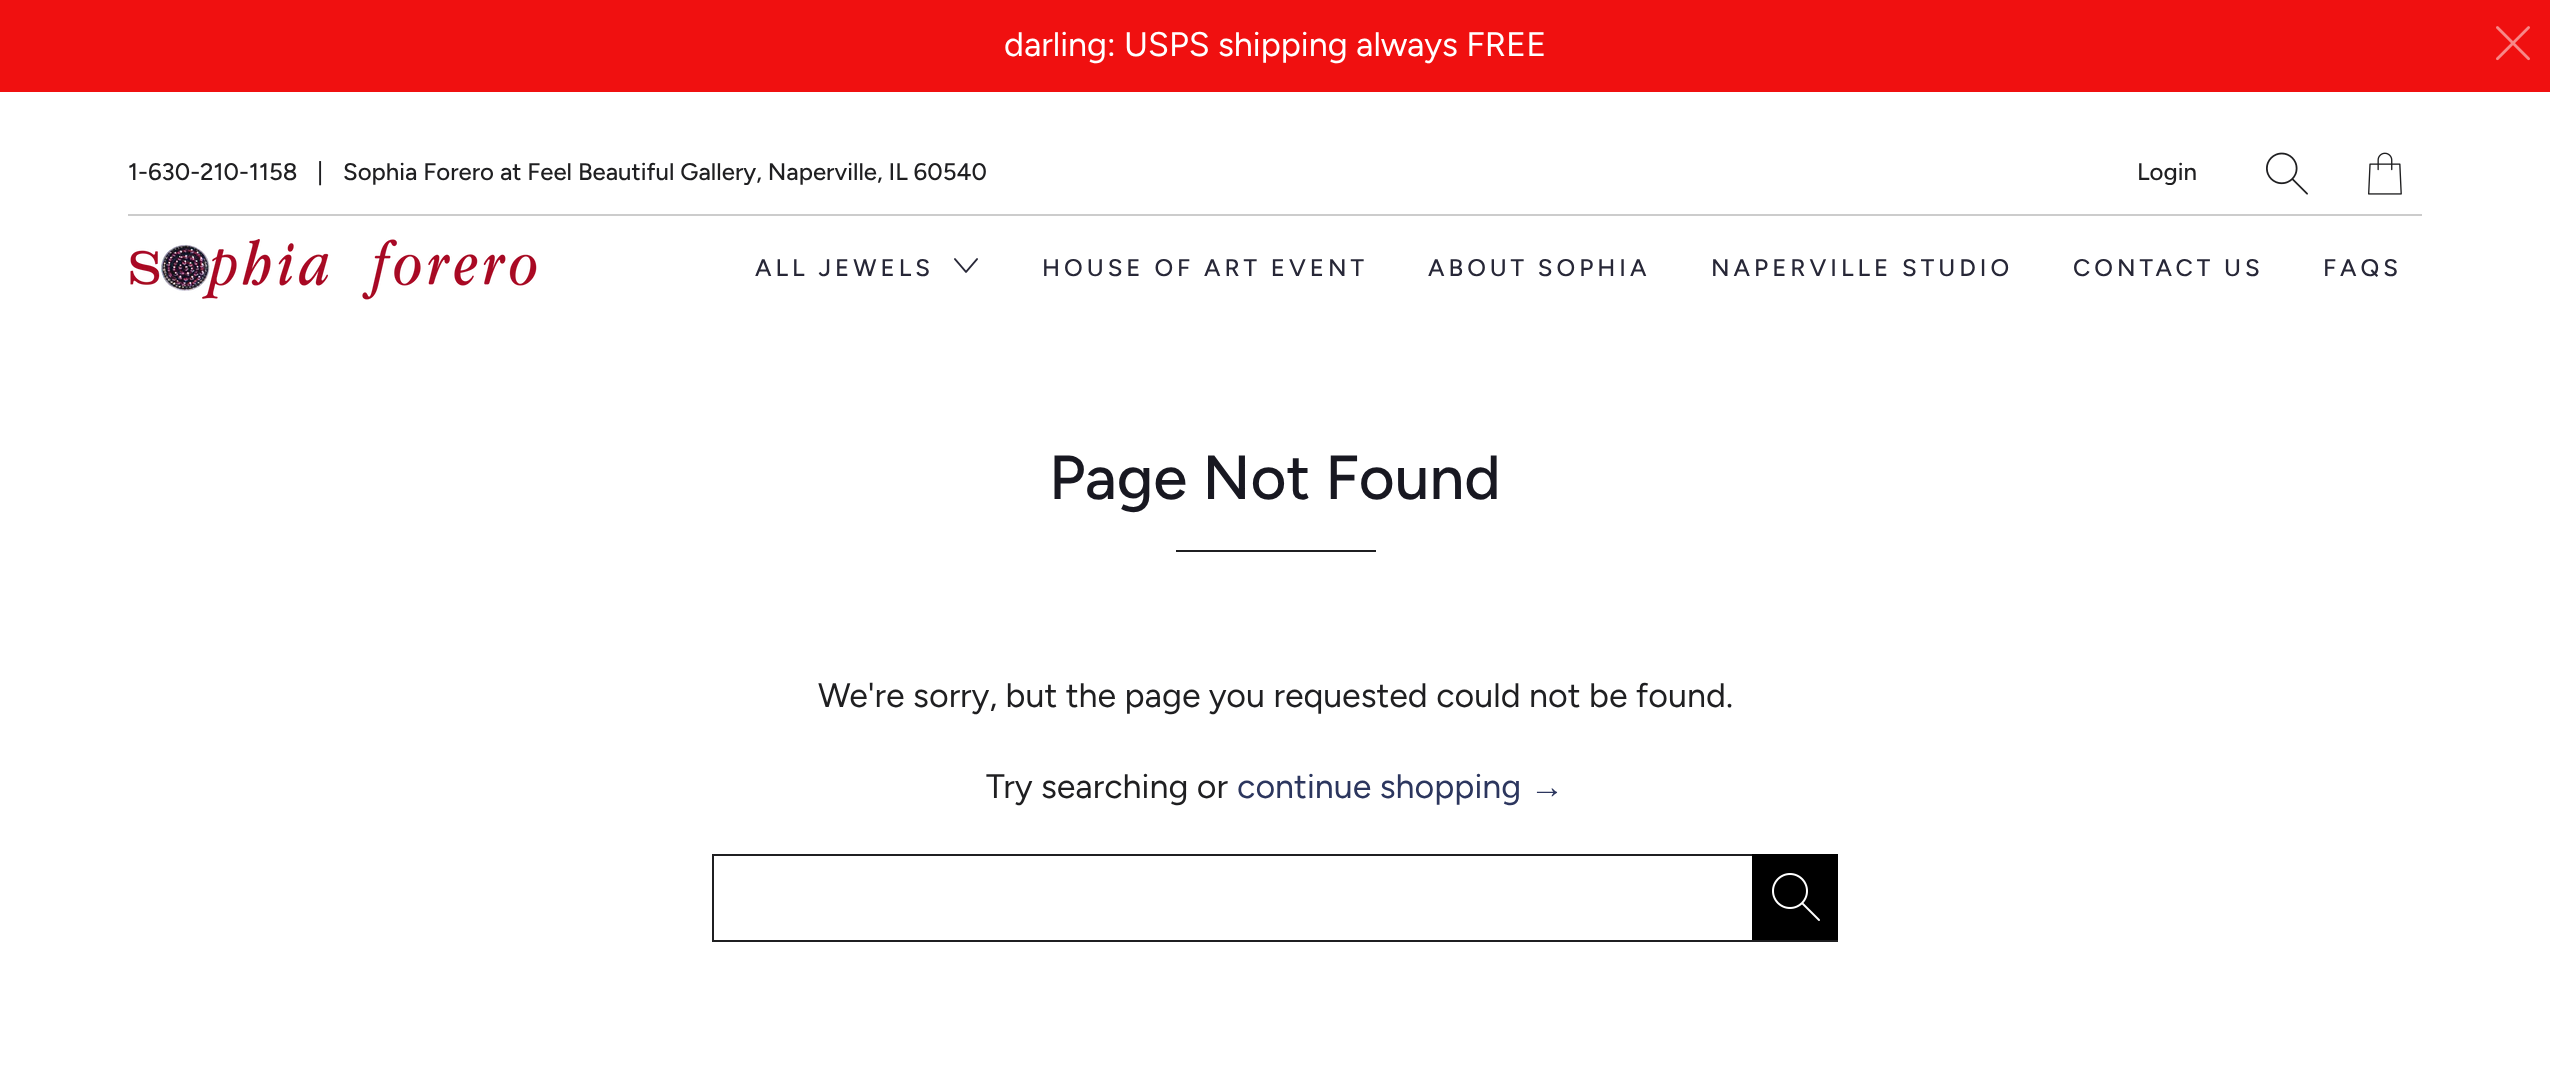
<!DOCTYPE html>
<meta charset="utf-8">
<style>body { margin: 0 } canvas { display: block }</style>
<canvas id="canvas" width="2550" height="1086"></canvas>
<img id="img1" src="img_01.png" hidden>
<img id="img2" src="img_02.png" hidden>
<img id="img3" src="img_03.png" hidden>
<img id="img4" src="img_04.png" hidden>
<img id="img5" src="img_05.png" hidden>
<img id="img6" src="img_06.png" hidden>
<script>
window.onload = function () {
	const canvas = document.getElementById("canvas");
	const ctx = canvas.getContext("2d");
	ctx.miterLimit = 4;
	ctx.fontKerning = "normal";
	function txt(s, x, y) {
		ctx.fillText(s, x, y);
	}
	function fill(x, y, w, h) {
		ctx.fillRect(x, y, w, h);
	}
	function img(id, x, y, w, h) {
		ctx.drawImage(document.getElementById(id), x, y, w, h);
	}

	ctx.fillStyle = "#FFFFFF";
	fill(0, 0, 2550, 1086);
	ctx.fillStyle = "#F01010";
	fill(0, 0, 2550, 92);
	img("img1", 2496, 26, 34, 35);
	ctx.fillStyle = "#CCCCCC";
	fill(128, 214, 2294, 2);
	img("img2", 2266, 152, 42, 43);
	img("img3", 2368, 152, 34, 43);
	img("img4", 130, 239, 407, 61);
	img("img5", 954, 258, 24, 15);
	ctx.fillStyle = "#1F1F21";
	fill(1176, 550, 200, 2);
	ctx.strokeStyle = "#1F1F21";
	ctx.lineWidth = 2;
	ctx.strokeRect(713, 855, 1124, 86);
	ctx.fillStyle = "#000000";
	fill(1752, 854, 86, 86);
	img("img6", 1772, 873, 48, 48);
	ctx.font = "34px Figtree";
	ctx.fillStyle = "#FFFFFF";
	txt("darling: USPS shipping always FREE", 1004, 56);
	ctx.font = "500 24px Figtree";
	ctx.fillStyle = "#1F1F21";
	txt("1-630-210-1158", 128, 180);
	txt("|", 317, 180);
	txt("Sophia Forero at Feel Beautiful Gallery, Naperville, IL 60540", 343, 180);
	txt("Login", 2137, 180);
	ctx.letterSpacing = "4px";
	ctx.fillStyle = "#272737";
	txt("ALL JEWELS", 755, 276);
	txt("HOUSE OF ART EVENT", 1042, 276);
	txt("ABOUT SOPHIA", 1428, 276);
	txt("NAPERVILLE STUDIO", 1711, 276);
	txt("CONTACT US", 2073, 276);
	txt("FAQS", 2323, 276);
	ctx.letterSpacing = "0px";
	ctx.font = "500 62px Figtree";
	ctx.fillStyle = "#181821";
	txt("Page Not Found", 1049, 499);
	ctx.font = "34px Figtree";
	ctx.fillStyle = "#1F1F21";
	txt("We're sorry, but the page you requested could not be found.", 818, 707);
	txt("Try searching or", 986, 798);
	ctx.fillStyle = "#2C365E";
	txt("continue shopping", 1237, 798);
	ctx.font = "34px Liberation Sans";
	txt("→", 1530, 798);
};
</script>
